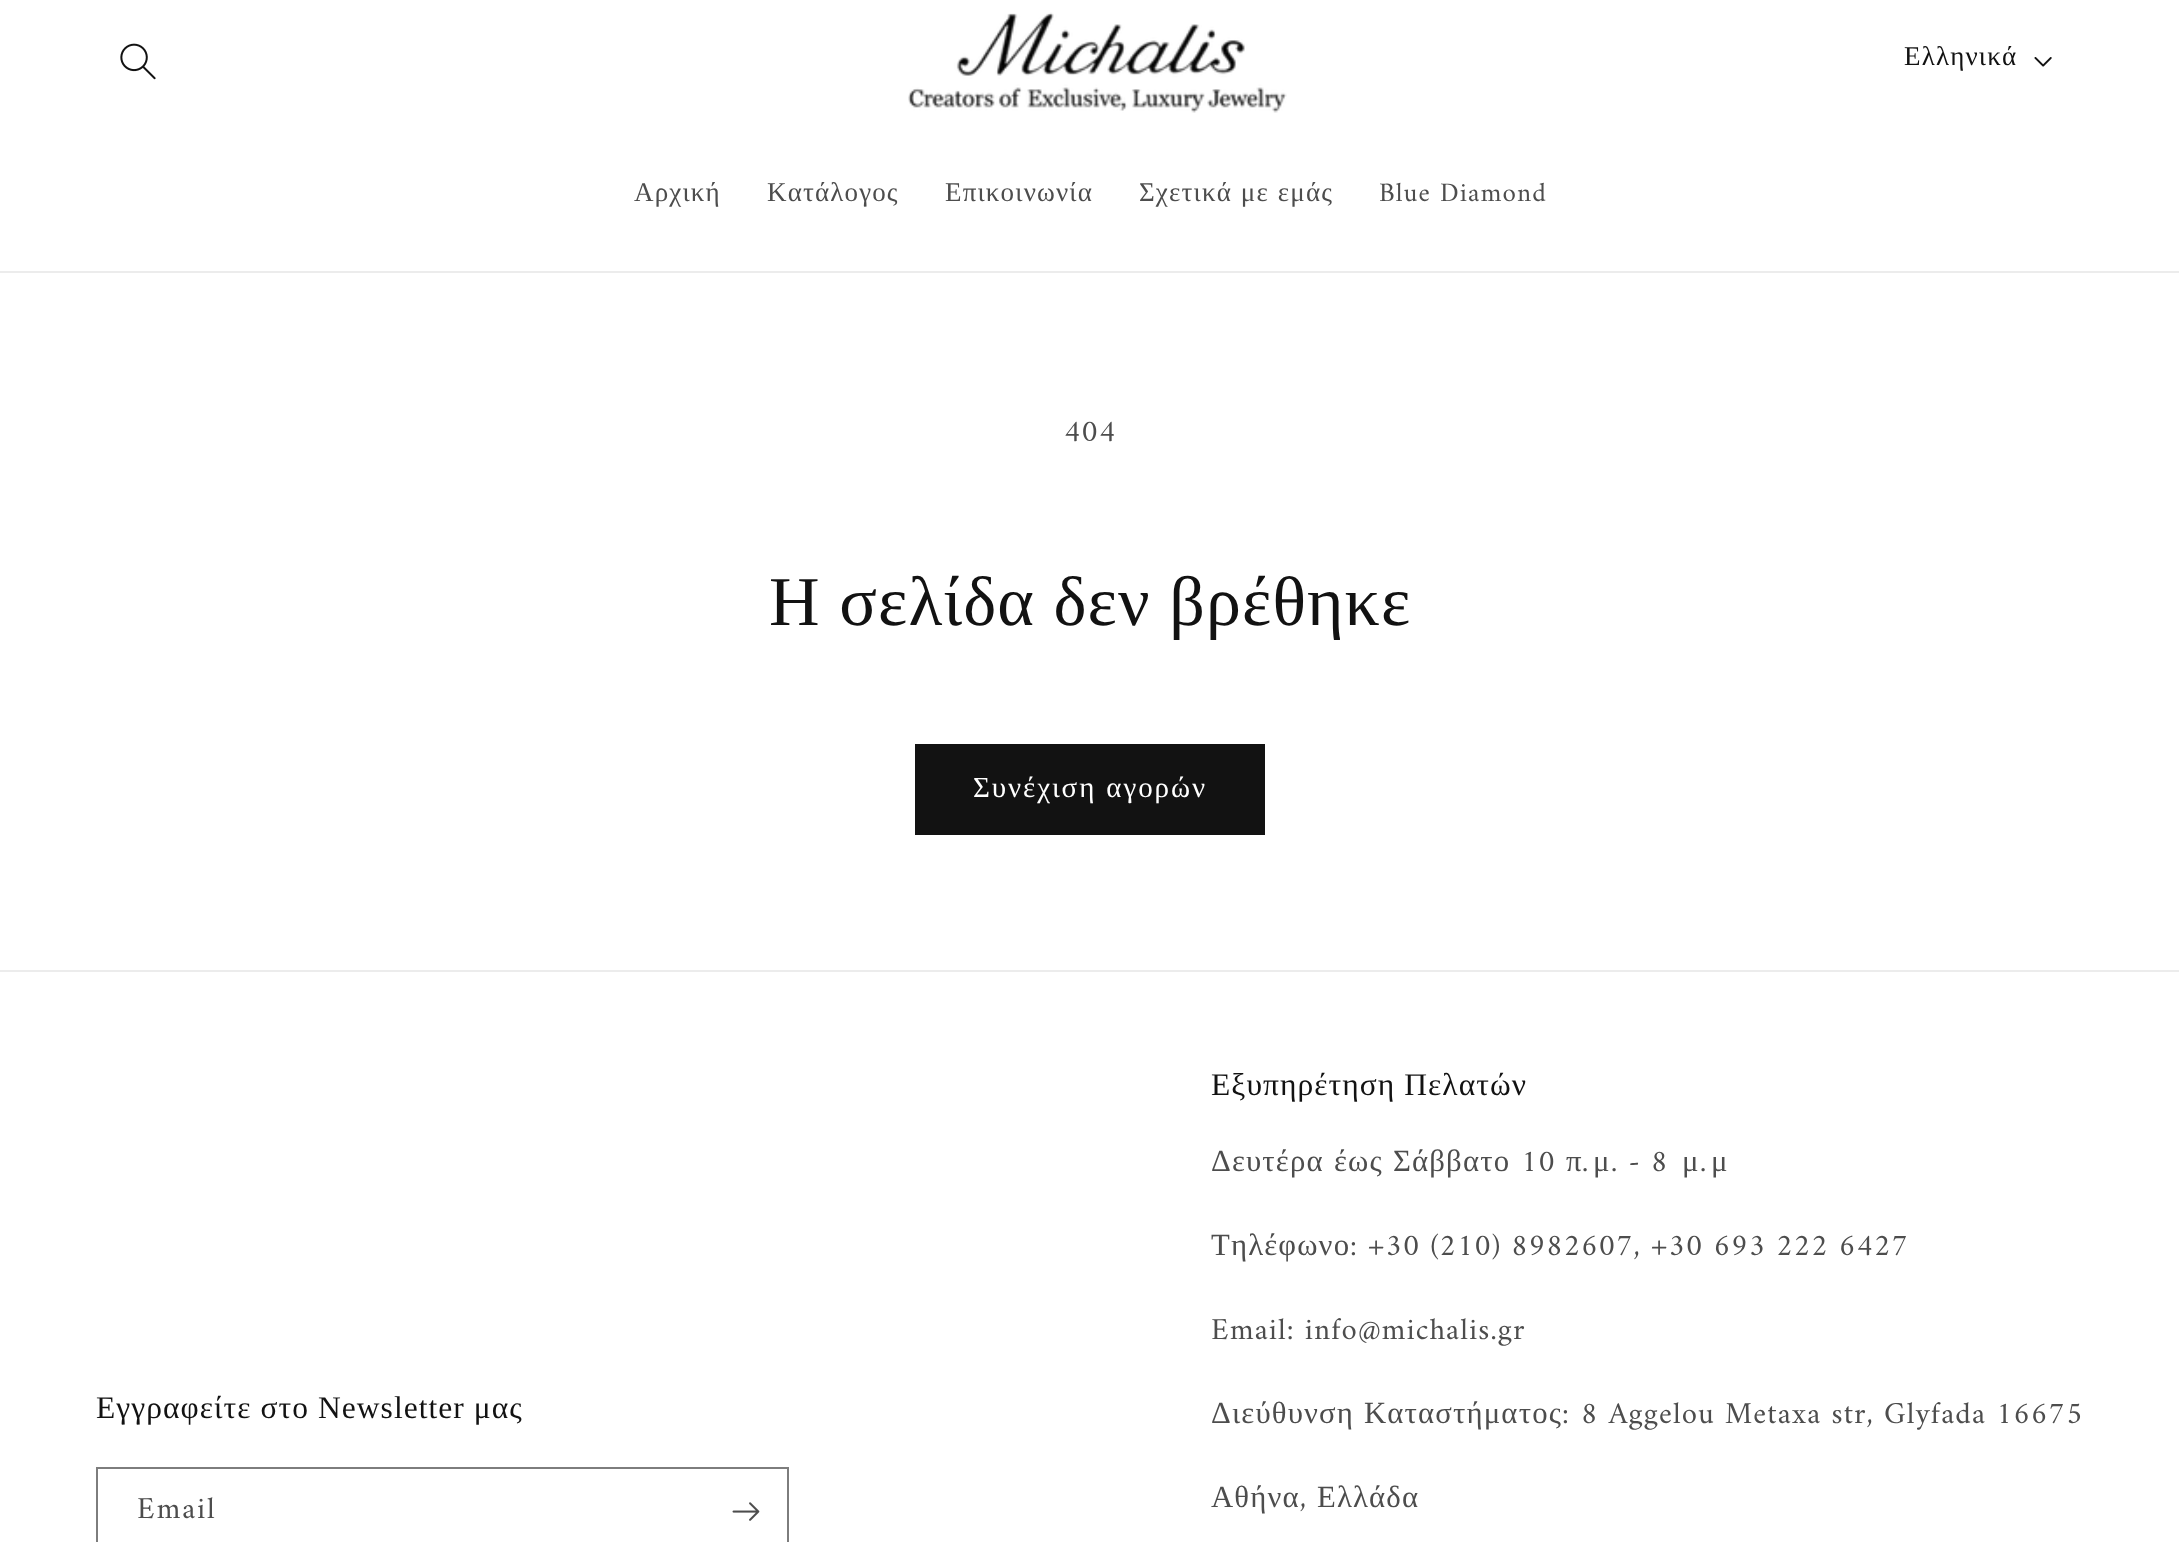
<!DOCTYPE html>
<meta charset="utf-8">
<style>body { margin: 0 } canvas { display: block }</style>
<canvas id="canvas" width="2179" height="1542"></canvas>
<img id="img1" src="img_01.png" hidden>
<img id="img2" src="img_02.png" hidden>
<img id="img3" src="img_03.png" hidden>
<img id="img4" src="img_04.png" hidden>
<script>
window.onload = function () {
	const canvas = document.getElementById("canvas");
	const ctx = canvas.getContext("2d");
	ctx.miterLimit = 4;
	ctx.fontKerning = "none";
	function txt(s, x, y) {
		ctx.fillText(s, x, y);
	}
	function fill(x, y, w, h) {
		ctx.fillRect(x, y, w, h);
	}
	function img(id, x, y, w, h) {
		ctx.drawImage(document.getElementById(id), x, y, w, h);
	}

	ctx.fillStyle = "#FFFFFF";
	fill(0, 0, 2179, 1542);
	ctx.fillStyle = "#ECECEC";
	fill(0, 271, 2179, 2);
	img("img1", 120, 43, 36, 37);
	img("img2", 908, 12, 379, 101);
	img("img3", 2034, 57, 18, 10);
	ctx.fillStyle = "#121212";
	fill(915, 744, 350, 91);
	ctx.fillStyle = "#ECECEC";
	fill(0, 970, 2179, 2);
	ctx.strokeStyle = "#7D7D7D";
	ctx.lineWidth = 2;
	ctx.strokeRect(97, 1468, 691, 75);
	img("img4", 732, 1502, 28, 19);
	ctx.letterSpacing = "1.15px";
	ctx.font = "27px Liberation Serif";
	ctx.fillStyle = "#121212";
	txt("Ελληνικά", 1904, 65);
	ctx.fillStyle = "#4D4D4D";
	txt("Αρχική", 634, 201);
	txt("Κατάλογος", 767, 201);
	txt("Επικοινωνία", 945, 201);
	ctx.wordSpacing = "1px";
	txt("Σχετικά με εμάς", 1139, 201);
	ctx.wordSpacing = "0px";
	ctx.font = "27px Amiri";
	txt("Blue Diamond", 1379, 201);
	ctx.font = "30.75px Amiri";
	txt("404", 1064, 441);
	ctx.letterSpacing = "1.05px";
	ctx.font = "70px Liberation Serif";
	ctx.fillStyle = "#121212";
	txt("Η σελίδα δεν βρέθηκε", 769, 625);
	ctx.letterSpacing = "1.9px";
	ctx.wordSpacing = "1px";
	ctx.font = "29px Liberation Serif";
	ctx.fillStyle = "#FFFFFF";
	txt("Συνέχιση αγορών", 973, 797);
	ctx.letterSpacing = "1.05px";
	ctx.wordSpacing = "0px";
	ctx.font = "31.5px Liberation Serif";
	ctx.fillStyle = "#121212";
	txt("Εγγραφείτε στo Newsletter μας", 96, 1418);
	ctx.letterSpacing = "1.9px";
	ctx.font = "30.75px Amiri";
	ctx.fillStyle = "#4D4D4D";
	txt("Email", 137, 1518);
	ctx.letterSpacing = "1.05px";
	ctx.font = "31.5px Liberation Serif";
	ctx.fillStyle = "#121212";
	txt("Εξυπηρέτηση Πελατών", 1211, 1095);
	ctx.letterSpacing = "1.15px";
	ctx.font = "30.75px Liberation Serif";
	ctx.fillStyle = "#4D4D4D";
	txt("Δευτέρα", 1211, 1171);
	txt("έως", 1334, 1171);
	txt("Σάββατο", 1393, 1171);
	ctx.font = "30.75px Amiri";
	txt("10", 1521, 1171);
	ctx.font = "30.75px Liberation Serif";
	txt("π", 1566, 1171);
	ctx.font = "30.75px Amiri";
	txt(".", 1582, 1171);
	ctx.font = "30.75px Liberation Serif";
	txt("μ", 1593, 1171);
	ctx.font = "30.75px Amiri";
	txt(". - 8", 1611, 1171);
	ctx.font = "30.75px Liberation Serif";
	txt("μ", 1682, 1171);
	ctx.font = "30.75px Amiri";
	txt(".", 1700, 1171);
	ctx.font = "30.75px Liberation Serif";
	txt("μ", 1711, 1171);
	txt("Τηλέφωνο", 1211, 1255);
	ctx.font = "30.75px Amiri";
	txt(": +30 (210) 8982607, +30 693 222 6427", 1350, 1255);
	txt("Email: info@michalis.gr", 1211, 1339);
	ctx.wordSpacing = "1px";
	ctx.font = "30.75px Liberation Serif";
	txt("Διεύθυνση Καταστήματος", 1211, 1423);
	ctx.wordSpacing = "0px";
	ctx.font = "30.75px Amiri";
	txt(":", 1562, 1423);
	txt("8 Aggelou Metaxa str, Glyfada 16675", 1581, 1423);
	ctx.font = "30.75px Liberation Serif";
	txt("Αθήνα", 1211, 1507);
	ctx.font = "30.75px Amiri";
	txt(",", 1300, 1507);
	ctx.font = "30.75px Liberation Serif";
	txt("Ελλάδα", 1317, 1507);
};
</script>
